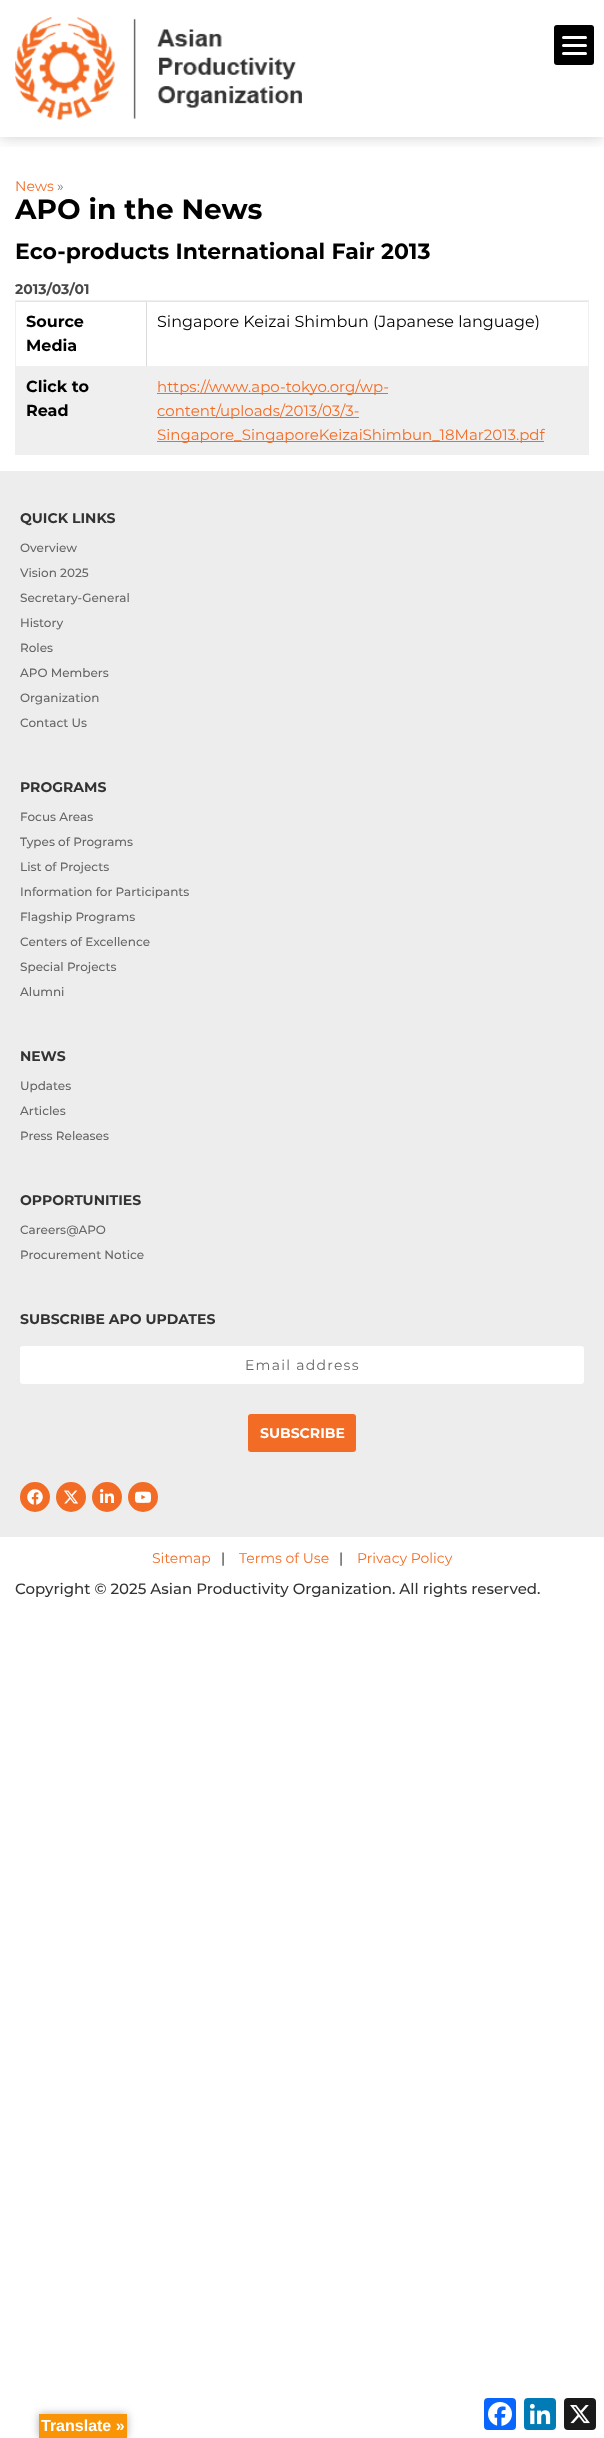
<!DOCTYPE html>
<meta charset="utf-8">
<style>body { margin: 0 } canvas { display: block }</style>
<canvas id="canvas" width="604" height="2438"></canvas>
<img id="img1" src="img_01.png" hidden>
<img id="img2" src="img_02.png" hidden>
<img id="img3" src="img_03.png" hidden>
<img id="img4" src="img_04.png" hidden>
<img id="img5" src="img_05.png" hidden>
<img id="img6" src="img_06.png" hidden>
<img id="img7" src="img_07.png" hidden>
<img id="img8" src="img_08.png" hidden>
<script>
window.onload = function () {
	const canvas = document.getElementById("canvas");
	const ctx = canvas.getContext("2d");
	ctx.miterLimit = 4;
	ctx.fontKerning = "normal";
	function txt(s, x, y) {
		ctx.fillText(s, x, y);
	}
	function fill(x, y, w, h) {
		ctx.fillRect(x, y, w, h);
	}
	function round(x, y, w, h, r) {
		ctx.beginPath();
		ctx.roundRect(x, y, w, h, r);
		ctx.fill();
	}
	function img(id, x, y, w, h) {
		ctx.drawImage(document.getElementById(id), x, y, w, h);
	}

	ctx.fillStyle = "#FFFFFF";
	fill(0, 0, 604, 2438);
	ctx.save();
	ctx.beginPath();
	ctx.rect(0, 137, 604, 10);
	ctx.clip();
	ctx.fillStyle = "rgba(0, 0, 0, 0.2)";
	ctx.filter = "blur(7.5px)";
	ctx.beginPath();
	ctx.rect(0, 0, 604, 137);
	ctx.fill();
	ctx.filter = "none";
	ctx.restore();
	ctx.fillStyle = "#000000";
	round(554, 25, 40, 40, 3);
	ctx.fillStyle = "#FFFFFF";
	round(562, 44, 25, 3, 1.5);
	round(562, 36, 25, 3, 1.5);
	round(562, 52, 25, 3, 1.5);
	img("img1", 15, 17, 287, 103);
	ctx.fillStyle = "#EFEFEF";
	fill(15, 300, 574, 1);
	fill(588, 300, 1, 155);
	fill(15, 300, 1, 155);
	ctx.fillStyle = "#E5E5E5";
	fill(146, 301, 442, 1);
	ctx.fillStyle = "#DBDBDB";
	fill(146, 301, 1, 66);
	ctx.fillStyle = "#E5E5E5";
	fill(16, 301, 131, 1);
	ctx.fillStyle = "#EFEFEF";
	fill(16, 366, 572, 89);
	ctx.fillStyle = "#F36C25";
	fill(157, 393, 231, 1);
	fill(157, 417, 202, 1);
	fill(157, 441, 387, 1);
	ctx.fillStyle = "#EDEDED";
	fill(0, 471, 604, 1066);
	ctx.fillStyle = "#FFFFFF";
	round(20, 1346, 564, 38, 3);
	ctx.fillStyle = "#F36C25";
	round(248, 1414, 108, 38, 3);
	ctx.beginPath();
	ctx.arc(35, 1497, 15, 0, Math.PI * 2);
	ctx.fill();
	img("img2", 27, 1489, 16, 16);
	ctx.beginPath();
	ctx.arc(71, 1497, 15, 0, Math.PI * 2);
	ctx.fill();
	img("img3", 64, 1490, 14, 14);
	ctx.beginPath();
	ctx.arc(107, 1497, 15, 0, Math.PI * 2);
	ctx.fill();
	img("img4", 100, 1489, 14, 14);
	ctx.beginPath();
	ctx.arc(143, 1497, 15, 0, Math.PI * 2);
	ctx.fill();
	img("img5", 135, 1491, 16, 12);
	ctx.fillStyle = "rgba(0, 0, 0, 0.3)";
	ctx.filter = "blur(4.5px)";
	ctx.beginPath();
	ctx.rect(39, 2414, 88, 24);
	ctx.fill();
	ctx.filter = "none";
	ctx.fillStyle = "#F89406";
	fill(39, 2414, 88, 24);
	ctx.fillStyle = "#0866FF";
	round(484, 2398, 32, 32, 4);
	img("img6", 488, 2402, 24, 24);
	ctx.fillStyle = "#007BB5";
	round(524, 2398, 32, 32, 4);
	img("img7", 529, 2403, 22, 22);
	ctx.fillStyle = "#1A1A1A";
	round(564, 2398, 32, 32, 4);
	img("img8", 570, 2405, 20, 19);
	ctx.font = "14px Montserrat";
	ctx.fillStyle = "#F36C25";
	txt("News", 15, 191);
	ctx.fillStyle = "#7D7D7D";
	txt("»", 57, 191);
	ctx.font = "bold 28px Montserrat";
	ctx.fillStyle = "#000000";
	txt("APO in the News", 15, 219);
	ctx.font = "bold 22px Montserrat";
	txt("Eco-products International Fair 2013", 15, 259);
	ctx.font = "bold 14px Montserrat";
	ctx.fillStyle = "#484848";
	txt("2013/03/01", 15, 294);
	ctx.font = "bold 16px Montserrat";
	ctx.fillStyle = "#000000";
	txt("Source", 26, 327);
	txt("Media", 26, 351);
	ctx.font = "16px Montserrat";
	txt("Singapore Keizai Shimbun (Japanese language)", 157, 327);
	ctx.font = "bold 16px Montserrat";
	txt("Click to", 26, 392);
	txt("Read", 26, 416);
	ctx.font = "15px Montserrat";
	ctx.fillStyle = "#F36C25";
	txt("https://www.apo-tokyo.org/wp-", 157, 392);
	txt("content/uploads/2013/03/3-", 157, 416);
	txt("Singapore_SingaporeKeizaiShimbun_18Mar2013.pdf", 157, 440);
	ctx.font = "bold 14px Montserrat";
	ctx.fillStyle = "#333333";
	txt("QUICK LINKS", 20, 523);
	ctx.font = "500 12px Montserrat";
	ctx.fillStyle = "#666666";
	txt("Overview", 20, 552);
	txt("Vision 2025", 20, 577);
	txt("Secretary-General", 20, 602);
	txt("History", 20, 627);
	txt("Roles", 20, 652);
	txt("APO Members", 20, 677);
	txt("Organization", 20, 702);
	txt("Contact Us", 20, 727);
	ctx.font = "bold 14px Montserrat";
	ctx.fillStyle = "#333333";
	txt("PROGRAMS", 20, 792);
	ctx.font = "500 12px Montserrat";
	ctx.fillStyle = "#666666";
	txt("Focus Areas", 20, 821);
	txt("Types of Programs", 20, 846);
	txt("List of Projects", 20, 871);
	txt("Information for Participants", 20, 896);
	txt("Flagship Programs", 20, 921);
	txt("Centers of Excellence", 20, 946);
	txt("Special Projects", 20, 971);
	txt("Alumni", 20, 996);
	ctx.font = "bold 14px Montserrat";
	ctx.fillStyle = "#333333";
	txt("NEWS", 20, 1061);
	ctx.font = "500 12px Montserrat";
	ctx.fillStyle = "#666666";
	txt("Updates", 20, 1090);
	txt("Articles", 20, 1115);
	txt("Press Releases", 20, 1140);
	ctx.font = "bold 14px Montserrat";
	ctx.fillStyle = "#333333";
	txt("OPPORTUNITIES", 20, 1205);
	ctx.font = "500 12px Montserrat";
	ctx.fillStyle = "#666666";
	txt("Careers@APO", 20, 1234);
	txt("Procurement Notice", 20, 1259);
	ctx.font = "bold 14px Montserrat";
	ctx.fillStyle = "#333333";
	txt("SUBSCRIBE APO UPDATES", 20, 1324);
	ctx.letterSpacing = "1.25px";
	ctx.font = "14px Montserrat";
	ctx.fillStyle = "#666666";
	txt("Email address", 245, 1370);
	ctx.letterSpacing = "0px";
	ctx.font = "bold 14px Montserrat";
	ctx.fillStyle = "#FFFFFF";
	txt("SUBSCRIBE", 260, 1438);
	ctx.font = "14px Montserrat";
	ctx.fillStyle = "#F36C25";
	txt("Sitemap", 152, 1563);
	ctx.fillStyle = "#000000";
	txt("|", 221, 1563);
	ctx.fillStyle = "#F36C25";
	txt("Terms of Use", 239, 1563);
	ctx.fillStyle = "#000000";
	txt("|", 339, 1563);
	ctx.fillStyle = "#F36C25";
	txt("Privacy Policy", 357, 1563);
	ctx.font = "500 15px Montserrat";
	ctx.fillStyle = "#333333";
	txt("Copyright © 2025 Asian Productivity Organization. All rights reserved.", 15, 1594);
	ctx.font = "bold 16px Liberation Sans";
	ctx.fillStyle = "#FFFFFF";
	txt("Translate »", 41, 2431);
};
</script>
